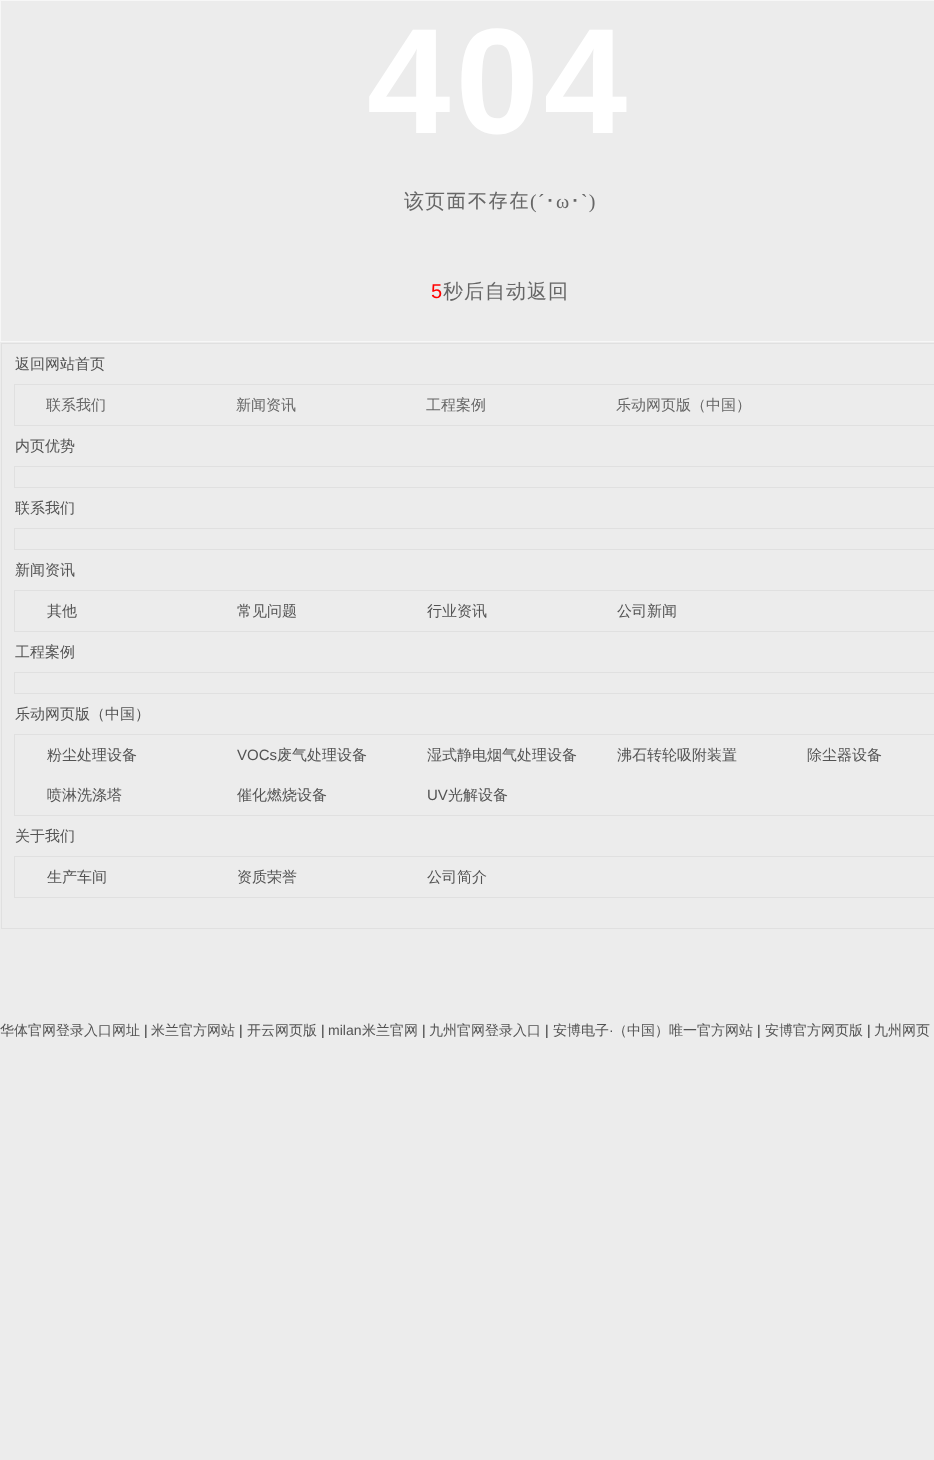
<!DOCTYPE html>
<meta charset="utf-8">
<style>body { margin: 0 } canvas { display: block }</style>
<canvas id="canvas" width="934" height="1460"></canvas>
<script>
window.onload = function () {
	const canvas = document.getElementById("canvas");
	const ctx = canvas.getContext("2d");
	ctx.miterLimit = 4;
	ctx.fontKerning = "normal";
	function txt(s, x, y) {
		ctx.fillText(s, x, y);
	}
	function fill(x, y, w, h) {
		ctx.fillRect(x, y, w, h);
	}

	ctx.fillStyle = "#ECECEC";
	fill(0, 0, 934, 1460);
	ctx.strokeStyle = "#F7F7F7";
	ctx.strokeRect(0.5, 0.5, 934, 341);
	ctx.strokeStyle = "#E0E0E0";
	ctx.strokeRect(1.5, 343.5, 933, 585);
	ctx.strokeRect(14.5, 384.5, 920, 41);
	ctx.strokeRect(14.5, 466.5, 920, 21);
	ctx.strokeRect(14.5, 528.5, 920, 21);
	ctx.strokeRect(14.5, 590.5, 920, 41);
	ctx.strokeRect(14.5, 672.5, 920, 21);
	ctx.strokeRect(14.5, 734.5, 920, 81);
	ctx.strokeRect(14.5, 856.5, 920, 41);
	ctx.letterSpacing = "5px";
	ctx.font = "bold 150px Liberation Sans";
	ctx.fillStyle = "#FFFFFF";
	txt("404", 367, 133);
	ctx.letterSpacing = "1px";
	ctx.font = "500 20px WenQuanYi Zen Hei";
	ctx.fillStyle = "#666666";
	txt("该页", 404, 208);
	ctx.font = "20px IPAGothic";
	txt("面不存在", 446, 208);
	ctx.font = "20px Liberation Serif";
	txt("(´", 530, 208);
	ctx.font = "20px IPAGothic";
	txt("･", 545, 208);
	ctx.font = "20px Liberation Serif";
	txt("ω", 556, 208);
	ctx.font = "20px IPAGothic";
	txt("･", 570, 208);
	ctx.font = "20px Liberation Serif";
	txt("`)", 581, 208);
	ctx.font = "20px Liberation Sans";
	ctx.fillStyle = "#FF0000";
	txt("5", 431, 298);
	ctx.font = "500 20px WenQuanYi Zen Hei";
	ctx.fillStyle = "#666666";
	txt("秒后自动返回", 443, 298);
	ctx.letterSpacing = "0px";
	ctx.font = "500 15px WenQuanYi Zen Hei";
	ctx.fillStyle = "#535353";
	txt("返回网站首页", 15, 369);
	ctx.fillStyle = "#666666";
	txt("联系我们", 46, 410);
	txt("新闻资讯", 236, 410);
	txt("工程案例", 426, 410);
	txt("乐动网页版（中国）", 616, 410);
	ctx.fillStyle = "#535353";
	txt("内页优势", 15, 451);
	txt("联系我们", 15, 513);
	txt("新闻资讯", 15, 575);
	txt("其他", 47, 616);
	txt("常见问题", 237, 616);
	txt("行业资讯", 427, 616);
	txt("公司新闻", 617, 616);
	txt("工程案例", 15, 657);
	txt("乐动网页版（中国）", 15, 719);
	txt("粉尘处理设备", 47, 760);
	ctx.font = "15px Liberation Sans";
	txt("VOCs", 237, 760);
	ctx.font = "500 15px WenQuanYi Zen Hei";
	txt("废气处理设备", 277, 760);
	txt("湿式静电烟气处理设备", 427, 760);
	txt("沸石转轮吸附装置", 617, 760);
	txt("除尘器设备", 807, 760);
	txt("喷淋洗涤塔", 47, 800);
	txt("催化燃烧设备", 237, 800);
	ctx.font = "15px Liberation Sans";
	txt("UV", 427, 800);
	ctx.font = "500 15px WenQuanYi Zen Hei";
	txt("光解设备", 448, 800);
	txt("关于我们", 15, 841);
	txt("生产车间", 47, 882);
	txt("资质荣誉", 237, 882);
	txt("公司简介", 427, 882);
	ctx.font = "500 14px WenQuanYi Zen Hei";
	txt("华体官网登录入口网址", 0, 1035);
	ctx.font = "14px Liberation Sans";
	ctx.fillStyle = "#333333";
	txt("|", 144, 1035);
	ctx.font = "500 14px WenQuanYi Zen Hei";
	ctx.fillStyle = "#535353";
	txt("米兰官方网站", 151, 1035);
	ctx.font = "14px Liberation Sans";
	ctx.fillStyle = "#333333";
	txt("|", 239, 1035);
	ctx.font = "500 14px WenQuanYi Zen Hei";
	ctx.fillStyle = "#535353";
	txt("开云网页版", 247, 1035);
	ctx.font = "14px Liberation Sans";
	ctx.fillStyle = "#333333";
	txt("|", 321, 1035);
	ctx.fillStyle = "#535353";
	txt("milan", 328, 1035);
	ctx.font = "500 14px WenQuanYi Zen Hei";
	txt("米兰官网", 362, 1035);
	ctx.font = "14px Liberation Sans";
	ctx.fillStyle = "#333333";
	txt("|", 422, 1035);
	ctx.font = "500 14px WenQuanYi Zen Hei";
	ctx.fillStyle = "#535353";
	txt("九州官网登录入口", 429, 1035);
	ctx.font = "14px Liberation Sans";
	ctx.fillStyle = "#333333";
	txt("|", 545, 1035);
	ctx.font = "500 14px WenQuanYi Zen Hei";
	ctx.fillStyle = "#535353";
	txt("安博电子", 553, 1035);
	ctx.font = "14px Liberation Sans";
	txt("·", 609, 1035);
	ctx.font = "500 14px WenQuanYi Zen Hei";
	txt("（中国）唯一官方网站", 613, 1035);
	ctx.font = "14px Liberation Sans";
	ctx.fillStyle = "#333333";
	txt("|", 757, 1035);
	ctx.font = "500 14px WenQuanYi Zen Hei";
	ctx.fillStyle = "#535353";
	txt("安博官方网页版", 765, 1035);
	ctx.font = "14px Liberation Sans";
	ctx.fillStyle = "#333333";
	txt("|", 867, 1035);
	ctx.font = "500 14px WenQuanYi Zen Hei";
	ctx.fillStyle = "#535353";
	txt("九州网页", 874, 1035);
};
</script>
